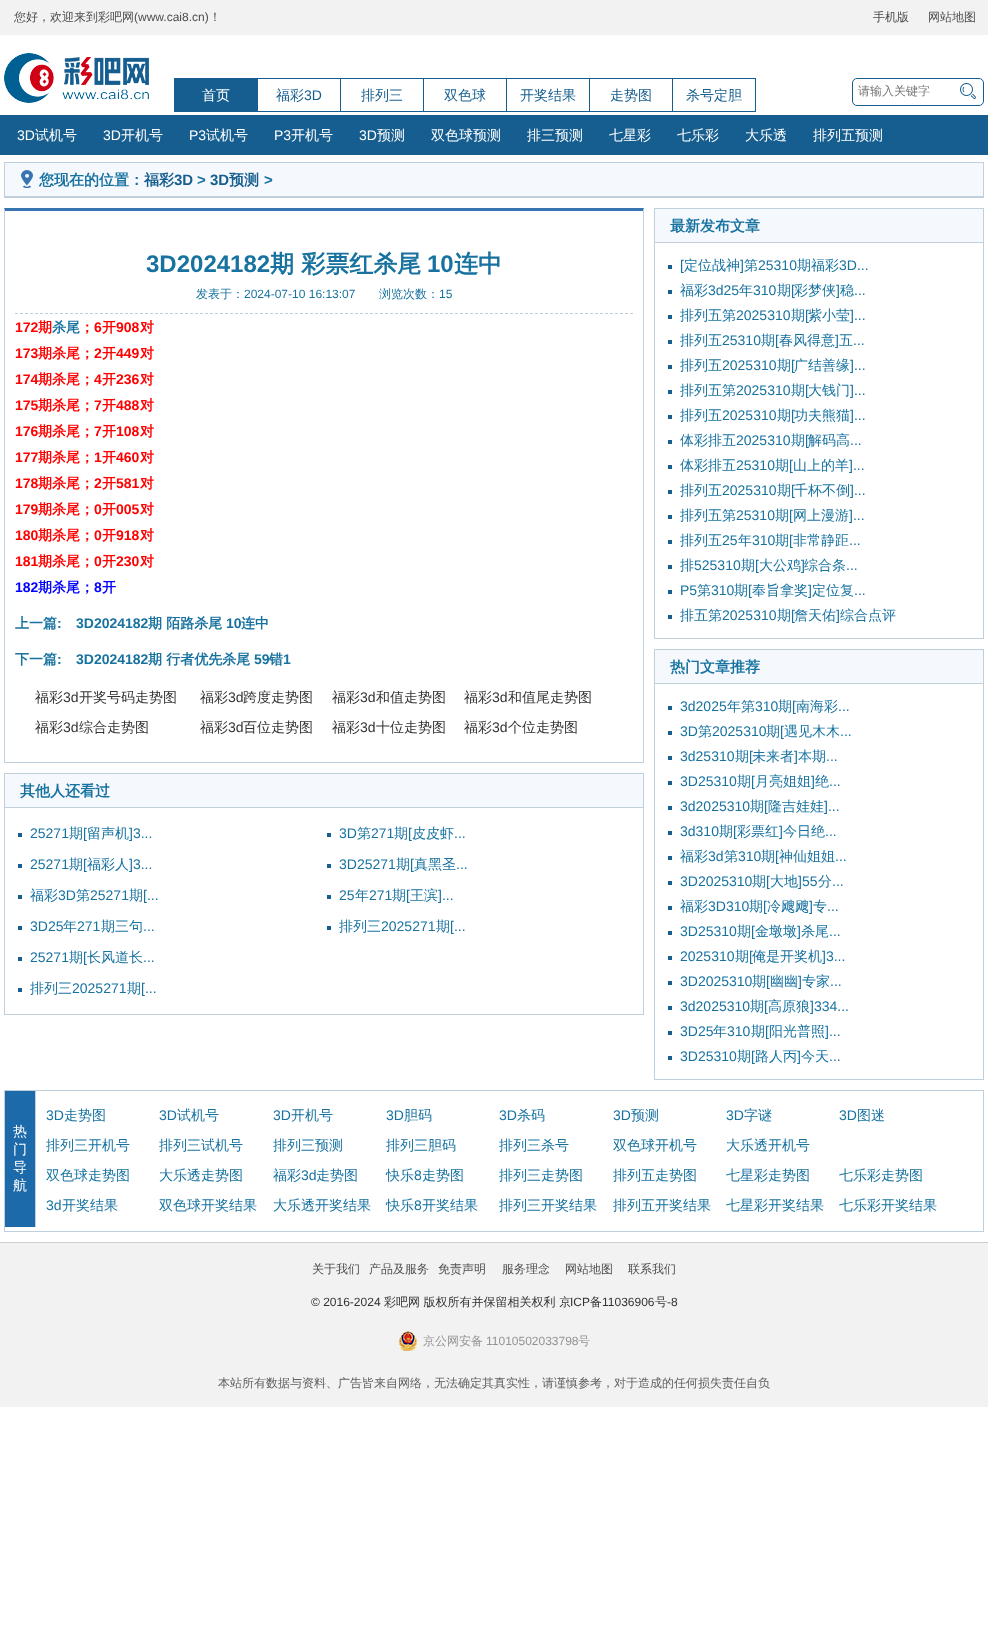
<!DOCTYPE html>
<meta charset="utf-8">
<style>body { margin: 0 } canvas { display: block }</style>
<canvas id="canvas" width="988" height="1625"></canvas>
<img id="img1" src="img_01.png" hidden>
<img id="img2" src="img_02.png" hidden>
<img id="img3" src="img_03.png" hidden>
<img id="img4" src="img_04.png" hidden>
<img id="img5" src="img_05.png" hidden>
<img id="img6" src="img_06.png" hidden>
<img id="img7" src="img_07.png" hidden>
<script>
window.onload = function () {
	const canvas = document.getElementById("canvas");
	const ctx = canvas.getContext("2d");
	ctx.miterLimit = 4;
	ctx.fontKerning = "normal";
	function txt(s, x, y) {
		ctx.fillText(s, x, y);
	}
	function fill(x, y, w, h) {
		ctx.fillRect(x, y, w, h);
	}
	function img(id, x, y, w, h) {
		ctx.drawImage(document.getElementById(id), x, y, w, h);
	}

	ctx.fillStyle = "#FFFFFF";
	fill(0, 0, 988, 1625);
	ctx.fillStyle = "#F2F2F2";
	fill(0, 0, 988, 35);
	img("img1", 4, 53, 145, 50);
	ctx.fillStyle = "#165E8F";
	fill(174, 78, 582, 1);
	fill(174, 111, 582, 1);
	fill(174, 78, 1, 34);
	fill(257, 79, 1, 33);
	fill(175, 79, 82, 32);
	fill(340, 79, 1, 33);
	fill(423, 79, 1, 33);
	fill(506, 79, 1, 33);
	fill(589, 79, 1, 33);
	fill(672, 79, 1, 33);
	fill(755, 79, 1, 33);
	ctx.beginPath();
	ctx.roundRect(852.5, 78.5, 131, 27, 4.5);
	ctx.strokeStyle = "#165E8F";
	ctx.stroke();
	img("img2", 960, 83, 16, 16);
	fill(0, 115, 988, 40);
	ctx.strokeStyle = "#BECFDE";
	ctx.strokeRect(4.5, 162.5, 979, 35);
	img("img3", 5, 163, 978, 34);
	img("img4", 21, 170, 12, 18);
	ctx.fillStyle = "#3874B1";
	ctx.beginPath();
	ctx.moveTo(4, 208);
	ctx.lineTo(644, 208);
	ctx.lineTo(643, 211);
	ctx.lineTo(5, 211);
	ctx.closePath();
	ctx.fill();
	ctx.fillStyle = "#BECFDE";
	ctx.beginPath();
	ctx.moveTo(644, 208);
	ctx.lineTo(644, 763);
	ctx.lineTo(643, 762);
	ctx.lineTo(643, 211);
	ctx.closePath();
	ctx.fill();
	fill(4, 762, 640, 1);
	ctx.beginPath();
	ctx.moveTo(4, 763);
	ctx.lineTo(4, 208);
	ctx.lineTo(5, 211);
	ctx.lineTo(5, 762);
	ctx.closePath();
	ctx.fill();
	ctx.beginPath();
	ctx.moveTo(15, 313.5);
	ctx.lineTo(633, 313.5);
	ctx.setLineDash([3, 2]);
	ctx.stroke();
	ctx.setLineDash([]);
	ctx.strokeRect(4.5, 773.5, 639, 241);
	img("img5", 5, 774, 638, 34);
	ctx.fillStyle = "#165E8F";
	fill(18, 833, 4, 4);
	fill(18, 864, 4, 4);
	fill(327, 833, 4, 4);
	fill(327, 864, 4, 4);
	fill(18, 895, 4, 4);
	fill(18, 926, 4, 4);
	fill(327, 895, 4, 4);
	fill(327, 926, 4, 4);
	fill(18, 957, 4, 4);
	fill(18, 988, 4, 4);
	ctx.strokeRect(654.5, 208.5, 329, 430);
	img("img6", 655, 209, 328, 34);
	fill(668, 265, 4, 4);
	fill(668, 290, 4, 4);
	fill(668, 315, 4, 4);
	fill(668, 340, 4, 4);
	fill(668, 365, 4, 4);
	fill(668, 390, 4, 4);
	fill(668, 415, 4, 4);
	fill(668, 440, 4, 4);
	fill(668, 465, 4, 4);
	fill(668, 490, 4, 4);
	fill(668, 515, 4, 4);
	fill(668, 540, 4, 4);
	fill(668, 565, 4, 4);
	fill(668, 590, 4, 4);
	fill(668, 615, 4, 4);
	ctx.strokeRect(654.5, 649.5, 329, 430);
	img("img6", 655, 650, 328, 34);
	fill(668, 706, 4, 4);
	fill(668, 731, 4, 4);
	fill(668, 756, 4, 4);
	fill(668, 781, 4, 4);
	fill(668, 806, 4, 4);
	fill(668, 831, 4, 4);
	fill(668, 856, 4, 4);
	fill(668, 881, 4, 4);
	fill(668, 906, 4, 4);
	fill(668, 931, 4, 4);
	fill(668, 956, 4, 4);
	fill(668, 981, 4, 4);
	fill(668, 1006, 4, 4);
	fill(668, 1031, 4, 4);
	fill(668, 1056, 4, 4);
	ctx.strokeRect(4.5, 1090.5, 979, 141);
	ctx.fillStyle = "#1D6AAA";
	fill(5, 1091, 30, 136);
	ctx.fillStyle = "#BECFDE";
	fill(35, 1091, 1, 136);
	ctx.fillStyle = "#F2F2F2";
	fill(0, 1243, 988, 164);
	ctx.fillStyle = "#CCCCCC";
	fill(0, 1242, 988, 1);
	img("img7", 399, 1331, 18, 20);
	ctx.font = "500 12px WenQuanYi Zen Hei";
	ctx.fillStyle = "#4D4D4D";
	txt("您好，欢迎来到彩吧网", 14, 21);
	ctx.font = "12px Liberation Sans";
	txt("(www.cai8.cn)", 134, 21);
	ctx.font = "500 12px WenQuanYi Zen Hei";
	txt("！", 209, 21);
	txt("手机版", 873, 21);
	txt("网站地图", 928, 21);
	ctx.font = "500 14px WenQuanYi Zen Hei";
	ctx.fillStyle = "#FFFFFF";
	txt("首页", 202, 100);
	ctx.fillStyle = "#165E8F";
	txt("福彩", 276, 100);
	ctx.font = "14px Liberation Sans";
	txt("3D", 304, 100);
	ctx.font = "500 14px WenQuanYi Zen Hei";
	txt("排列三", 361, 100);
	txt("双色球", 444, 100);
	txt("开奖结果", 520, 100);
	txt("走势图", 610, 100);
	txt("杀号定胆", 686, 100);
	ctx.font = "500 12px WenQuanYi Zen Hei";
	ctx.fillStyle = "#757575";
	txt("请输入关键字", 858, 95);
	ctx.font = "14px Liberation Sans";
	ctx.fillStyle = "#FFFFFF";
	txt("3D", 17, 140);
	ctx.font = "500 14px WenQuanYi Zen Hei";
	txt("试机号", 35, 140);
	ctx.font = "14px Liberation Sans";
	txt("3D", 103, 140);
	ctx.font = "500 14px WenQuanYi Zen Hei";
	txt("开机号", 121, 140);
	ctx.font = "14px Liberation Sans";
	txt("P3", 189, 140);
	ctx.font = "500 14px WenQuanYi Zen Hei";
	txt("试机号", 206, 140);
	ctx.font = "14px Liberation Sans";
	txt("P3", 274, 140);
	ctx.font = "500 14px WenQuanYi Zen Hei";
	txt("开机号", 291, 140);
	ctx.font = "14px Liberation Sans";
	txt("3D", 359, 140);
	ctx.font = "500 14px WenQuanYi Zen Hei";
	txt("预测", 377, 140);
	txt("双色球预测", 431, 140);
	txt("排三预测", 527, 140);
	txt("七星彩", 609, 140);
	txt("七乐彩", 677, 140);
	txt("大乐透", 745, 140);
	txt("排列五预测", 813, 140);
	ctx.font = "bold 15px WenQuanYi Zen Hei";
	ctx.fillStyle = "#1772A0";
	txt("您现在的位置：", 39, 185);
	ctx.fillStyle = "#165E8F";
	txt("福彩", 144, 185);
	ctx.font = "bold 15px Liberation Sans";
	txt("3D", 174, 185);
	ctx.fillStyle = "#1772A0";
	txt(">", 197, 185);
	ctx.fillStyle = "#165E8F";
	txt("3D", 210, 185);
	ctx.font = "bold 15px WenQuanYi Zen Hei";
	txt("预测", 229, 185);
	ctx.font = "bold 15px Liberation Sans";
	ctx.fillStyle = "#1772A0";
	txt(">", 264, 185);
	ctx.font = "bold 24px Liberation Sans";
	txt("3D2024182", 146, 272);
	ctx.font = "bold 24px WenQuanYi Zen Hei";
	txt("期 彩票红杀尾", 270, 272);
	ctx.font = "bold 24px Liberation Sans";
	txt("10", 427, 272);
	ctx.font = "bold 24px WenQuanYi Zen Hei";
	txt("连中", 454, 272);
	ctx.font = "500 12px WenQuanYi Zen Hei";
	txt("发表于：", 196, 298);
	ctx.font = "12px Liberation Sans";
	txt("2024-07-10 16:13:07", 244, 298);
	ctx.font = "500 12px WenQuanYi Zen Hei";
	txt("浏览次数：", 379, 298);
	ctx.font = "12px Liberation Sans";
	txt("15", 439, 298);
	ctx.font = "bold 14px Liberation Sans";
	ctx.fillStyle = "#FF0000";
	txt("172", 15, 332);
	ctx.font = "bold 14px WenQuanYi Zen Hei";
	txt("期", 38, 332);
	ctx.fillStyle = "#1772A0";
	txt("杀尾", 52, 332);
	ctx.fillStyle = "#FF0000";
	txt("；", 80, 332);
	ctx.font = "bold 14px Liberation Sans";
	txt("6", 94, 332);
	ctx.font = "bold 14px WenQuanYi Zen Hei";
	txt("开", 102, 332);
	ctx.font = "bold 14px Liberation Sans";
	txt("908", 116, 332);
	ctx.font = "bold 14px WenQuanYi Zen Hei";
	txt("对", 140, 332);
	ctx.font = "bold 14px Liberation Sans";
	txt("173", 15, 358);
	ctx.font = "bold 14px WenQuanYi Zen Hei";
	txt("期杀尾；", 38, 358);
	ctx.font = "bold 14px Liberation Sans";
	txt("2", 94, 358);
	ctx.font = "bold 14px WenQuanYi Zen Hei";
	txt("开", 102, 358);
	ctx.font = "bold 14px Liberation Sans";
	txt("449", 116, 358);
	ctx.font = "bold 14px WenQuanYi Zen Hei";
	txt("对", 140, 358);
	ctx.font = "bold 14px Liberation Sans";
	txt("174", 15, 384);
	ctx.font = "bold 14px WenQuanYi Zen Hei";
	txt("期杀尾；", 38, 384);
	ctx.font = "bold 14px Liberation Sans";
	txt("4", 94, 384);
	ctx.font = "bold 14px WenQuanYi Zen Hei";
	txt("开", 102, 384);
	ctx.font = "bold 14px Liberation Sans";
	txt("236", 116, 384);
	ctx.font = "bold 14px WenQuanYi Zen Hei";
	txt("对", 140, 384);
	ctx.font = "bold 14px Liberation Sans";
	txt("175", 15, 410);
	ctx.font = "bold 14px WenQuanYi Zen Hei";
	txt("期杀尾；", 38, 410);
	ctx.font = "bold 14px Liberation Sans";
	txt("7", 94, 410);
	ctx.font = "bold 14px WenQuanYi Zen Hei";
	txt("开", 102, 410);
	ctx.font = "bold 14px Liberation Sans";
	txt("488", 116, 410);
	ctx.font = "bold 14px WenQuanYi Zen Hei";
	txt("对", 140, 410);
	ctx.font = "bold 14px Liberation Sans";
	txt("176", 15, 436);
	ctx.font = "bold 14px WenQuanYi Zen Hei";
	txt("期杀尾；", 38, 436);
	ctx.font = "bold 14px Liberation Sans";
	txt("7", 94, 436);
	ctx.font = "bold 14px WenQuanYi Zen Hei";
	txt("开", 102, 436);
	ctx.font = "bold 14px Liberation Sans";
	txt("108", 116, 436);
	ctx.font = "bold 14px WenQuanYi Zen Hei";
	txt("对", 140, 436);
	ctx.font = "bold 14px Liberation Sans";
	txt("177", 15, 462);
	ctx.font = "bold 14px WenQuanYi Zen Hei";
	txt("期杀尾；", 38, 462);
	ctx.font = "bold 14px Liberation Sans";
	txt("1", 94, 462);
	ctx.font = "bold 14px WenQuanYi Zen Hei";
	txt("开", 102, 462);
	ctx.font = "bold 14px Liberation Sans";
	txt("460", 116, 462);
	ctx.font = "bold 14px WenQuanYi Zen Hei";
	txt("对", 140, 462);
	ctx.font = "bold 14px Liberation Sans";
	txt("178", 15, 488);
	ctx.font = "bold 14px WenQuanYi Zen Hei";
	txt("期杀尾；", 38, 488);
	ctx.font = "bold 14px Liberation Sans";
	txt("2", 94, 488);
	ctx.font = "bold 14px WenQuanYi Zen Hei";
	txt("开", 102, 488);
	ctx.font = "bold 14px Liberation Sans";
	txt("581", 116, 488);
	ctx.font = "bold 14px WenQuanYi Zen Hei";
	txt("对", 140, 488);
	ctx.font = "bold 14px Liberation Sans";
	txt("179", 15, 514);
	ctx.font = "bold 14px WenQuanYi Zen Hei";
	txt("期杀尾；", 38, 514);
	ctx.font = "bold 14px Liberation Sans";
	txt("0", 94, 514);
	ctx.font = "bold 14px WenQuanYi Zen Hei";
	txt("开", 102, 514);
	ctx.font = "bold 14px Liberation Sans";
	txt("005", 116, 514);
	ctx.font = "bold 14px WenQuanYi Zen Hei";
	txt("对", 140, 514);
	ctx.font = "bold 14px Liberation Sans";
	txt("180", 15, 540);
	ctx.font = "bold 14px WenQuanYi Zen Hei";
	txt("期杀尾；", 38, 540);
	ctx.font = "bold 14px Liberation Sans";
	txt("0", 94, 540);
	ctx.font = "bold 14px WenQuanYi Zen Hei";
	txt("开", 102, 540);
	ctx.font = "bold 14px Liberation Sans";
	txt("918", 116, 540);
	ctx.font = "bold 14px WenQuanYi Zen Hei";
	txt("对", 140, 540);
	ctx.font = "bold 14px Liberation Sans";
	txt("181", 15, 566);
	ctx.font = "bold 14px WenQuanYi Zen Hei";
	txt("期杀尾；", 38, 566);
	ctx.font = "bold 14px Liberation Sans";
	txt("0", 94, 566);
	ctx.font = "bold 14px WenQuanYi Zen Hei";
	txt("开", 102, 566);
	ctx.font = "bold 14px Liberation Sans";
	txt("230", 116, 566);
	ctx.font = "bold 14px WenQuanYi Zen Hei";
	txt("对", 140, 566);
	ctx.font = "bold 14px Liberation Sans";
	ctx.fillStyle = "#0000FF";
	txt("182", 15, 592);
	ctx.font = "bold 14px WenQuanYi Zen Hei";
	txt("期杀尾；", 38, 592);
	ctx.font = "bold 14px Liberation Sans";
	txt("8", 94, 592);
	ctx.font = "bold 14px WenQuanYi Zen Hei";
	txt("开", 102, 592);
	ctx.fillStyle = "#1772A0";
	txt("上一篇", 15, 628);
	ctx.font = "bold 14px Liberation Sans";
	txt(":", 57, 628);
	txt("3D2024182", 76, 628);
	ctx.font = "bold 14px WenQuanYi Zen Hei";
	txt("期 陌路杀尾", 148, 628);
	ctx.font = "bold 14px Liberation Sans";
	txt("10", 226, 628);
	ctx.font = "bold 14px WenQuanYi Zen Hei";
	txt("连中", 241, 628);
	txt("下一篇", 15, 664);
	ctx.font = "bold 14px Liberation Sans";
	txt(":", 57, 664);
	txt("3D2024182", 76, 664);
	ctx.font = "bold 14px WenQuanYi Zen Hei";
	txt("期 行者优先杀尾", 148, 664);
	ctx.font = "bold 14px Liberation Sans";
	txt("59", 254, 664);
	ctx.font = "bold 14px WenQuanYi Zen Hei";
	txt("错", 269, 664);
	ctx.font = "bold 14px Liberation Sans";
	txt("1", 283, 664);
	ctx.font = "500 14px WenQuanYi Zen Hei";
	ctx.fillStyle = "#333333";
	txt("福彩", 35, 702);
	ctx.font = "14px Liberation Sans";
	txt("3d", 63, 702);
	ctx.font = "500 14px WenQuanYi Zen Hei";
	txt("开奖号码走势图", 79, 702);
	txt("福彩", 200, 702);
	ctx.font = "14px Liberation Sans";
	txt("3d", 228, 702);
	ctx.font = "500 14px WenQuanYi Zen Hei";
	txt("跨度走势图", 243, 702);
	txt("福彩", 332, 702);
	ctx.font = "14px Liberation Sans";
	txt("3d", 360, 702);
	ctx.font = "500 14px WenQuanYi Zen Hei";
	txt("和值走势图", 376, 702);
	txt("福彩", 464, 702);
	ctx.font = "14px Liberation Sans";
	txt("3d", 492, 702);
	ctx.font = "500 14px WenQuanYi Zen Hei";
	txt("和值尾走势图", 508, 702);
	txt("福彩", 35, 732);
	ctx.font = "14px Liberation Sans";
	txt("3d", 63, 732);
	ctx.font = "500 14px WenQuanYi Zen Hei";
	txt("综合走势图", 79, 732);
	txt("福彩", 200, 732);
	ctx.font = "14px Liberation Sans";
	txt("3d", 228, 732);
	ctx.font = "500 14px WenQuanYi Zen Hei";
	txt("百位走势图", 243, 732);
	txt("福彩", 332, 732);
	ctx.font = "14px Liberation Sans";
	txt("3d", 360, 732);
	ctx.font = "500 14px WenQuanYi Zen Hei";
	txt("十位走势图", 376, 732);
	txt("福彩", 464, 732);
	ctx.font = "14px Liberation Sans";
	txt("3d", 492, 732);
	ctx.font = "500 14px WenQuanYi Zen Hei";
	txt("个位走势图", 508, 732);
	ctx.font = "bold 15px WenQuanYi Zen Hei";
	ctx.fillStyle = "#1772A0";
	txt("其他人还看过", 20, 796);
	ctx.font = "14px Liberation Sans";
	txt("25271", 30, 838);
	ctx.font = "500 14px WenQuanYi Zen Hei";
	txt("期", 69, 838);
	ctx.font = "14px Liberation Sans";
	txt("[", 83, 838);
	ctx.font = "500 14px WenQuanYi Zen Hei";
	txt("留声机", 87, 838);
	ctx.font = "14px Liberation Sans";
	txt("]3...", 129, 838);
	txt("25271", 30, 869);
	ctx.font = "500 14px WenQuanYi Zen Hei";
	txt("期", 69, 869);
	ctx.font = "14px Liberation Sans";
	txt("[", 83, 869);
	ctx.font = "500 14px WenQuanYi Zen Hei";
	txt("福彩人", 87, 869);
	ctx.font = "14px Liberation Sans";
	txt("]3...", 129, 869);
	txt("3D", 339, 838);
	ctx.font = "500 14px WenQuanYi Zen Hei";
	txt("第", 357, 838);
	ctx.font = "14px Liberation Sans";
	txt("271", 371, 838);
	ctx.font = "500 14px WenQuanYi Zen Hei";
	txt("期", 394, 838);
	ctx.font = "14px Liberation Sans";
	txt("[", 408, 838);
	ctx.font = "500 14px WenQuanYi Zen Hei";
	txt("皮皮虾", 412, 838);
	ctx.font = "14px Liberation Sans";
	txt("...", 454, 838);
	txt("3D25271", 339, 869);
	ctx.font = "500 14px WenQuanYi Zen Hei";
	txt("期", 396, 869);
	ctx.font = "14px Liberation Sans";
	txt("[", 410, 869);
	ctx.font = "500 14px WenQuanYi Zen Hei";
	txt("真黑圣", 414, 869);
	ctx.font = "14px Liberation Sans";
	txt("...", 456, 869);
	ctx.font = "500 14px WenQuanYi Zen Hei";
	txt("福彩", 30, 900);
	ctx.font = "14px Liberation Sans";
	txt("3D", 58, 900);
	ctx.font = "500 14px WenQuanYi Zen Hei";
	txt("第", 76, 900);
	ctx.font = "14px Liberation Sans";
	txt("25271", 90, 900);
	ctx.font = "500 14px WenQuanYi Zen Hei";
	txt("期", 129, 900);
	ctx.font = "14px Liberation Sans";
	txt("[...", 143, 900);
	txt("3D25", 30, 931);
	ctx.font = "500 14px WenQuanYi Zen Hei";
	txt("年", 63, 931);
	ctx.font = "14px Liberation Sans";
	txt("271", 77, 931);
	ctx.font = "500 14px WenQuanYi Zen Hei";
	txt("期三句", 101, 931);
	ctx.font = "14px Liberation Sans";
	txt("...", 143, 931);
	txt("25", 339, 900);
	ctx.font = "500 14px WenQuanYi Zen Hei";
	txt("年", 355, 900);
	ctx.font = "14px Liberation Sans";
	txt("271", 369, 900);
	ctx.font = "500 14px WenQuanYi Zen Hei";
	txt("期", 392, 900);
	ctx.font = "14px Liberation Sans";
	txt("[", 406, 900);
	ctx.font = "500 14px WenQuanYi Zen Hei";
	txt("王滨", 410, 900);
	ctx.font = "14px Liberation Sans";
	txt("]...", 438, 900);
	ctx.font = "500 14px WenQuanYi Zen Hei";
	txt("排列三", 339, 931);
	ctx.font = "14px Liberation Sans";
	txt("2025271", 381, 931);
	ctx.font = "500 14px WenQuanYi Zen Hei";
	txt("期", 436, 931);
	ctx.font = "14px Liberation Sans";
	txt("[...", 450, 931);
	txt("25271", 30, 962);
	ctx.font = "500 14px WenQuanYi Zen Hei";
	txt("期", 69, 962);
	ctx.font = "14px Liberation Sans";
	txt("[", 83, 962);
	ctx.font = "500 14px WenQuanYi Zen Hei";
	txt("长风道长", 87, 962);
	ctx.font = "14px Liberation Sans";
	txt("...", 143, 962);
	ctx.font = "500 14px WenQuanYi Zen Hei";
	txt("排列三", 30, 993);
	ctx.font = "14px Liberation Sans";
	txt("2025271", 72, 993);
	ctx.font = "500 14px WenQuanYi Zen Hei";
	txt("期", 127, 993);
	ctx.font = "14px Liberation Sans";
	txt("[...", 141, 993);
	ctx.font = "bold 15px WenQuanYi Zen Hei";
	txt("最新发布文章", 670, 231);
	ctx.font = "14px Liberation Sans";
	txt("[", 680, 270);
	ctx.font = "500 14px WenQuanYi Zen Hei";
	txt("定位战神", 684, 270);
	ctx.font = "14px Liberation Sans";
	txt("]", 740, 270);
	ctx.font = "500 14px WenQuanYi Zen Hei";
	txt("第", 744, 270);
	ctx.font = "14px Liberation Sans";
	txt("25310", 758, 270);
	ctx.font = "500 14px WenQuanYi Zen Hei";
	txt("期福彩", 797, 270);
	ctx.font = "14px Liberation Sans";
	txt("3D...", 839, 270);
	ctx.font = "500 14px WenQuanYi Zen Hei";
	txt("福彩", 680, 295);
	ctx.font = "14px Liberation Sans";
	txt("3d25", 708, 295);
	ctx.font = "500 14px WenQuanYi Zen Hei";
	txt("年", 739, 295);
	ctx.font = "14px Liberation Sans";
	txt("310", 753, 295);
	ctx.font = "500 14px WenQuanYi Zen Hei";
	txt("期", 777, 295);
	ctx.font = "14px Liberation Sans";
	txt("[", 791, 295);
	ctx.font = "500 14px WenQuanYi Zen Hei";
	txt("彩梦侠", 794, 295);
	ctx.font = "14px Liberation Sans";
	txt("]", 836, 295);
	ctx.font = "500 14px WenQuanYi Zen Hei";
	txt("稳", 840, 295);
	ctx.font = "14px Liberation Sans";
	txt("...", 854, 295);
	ctx.font = "500 14px WenQuanYi Zen Hei";
	txt("排列五第", 680, 320);
	ctx.font = "14px Liberation Sans";
	txt("2025310", 736, 320);
	ctx.font = "500 14px WenQuanYi Zen Hei";
	txt("期", 791, 320);
	ctx.font = "14px Liberation Sans";
	txt("[", 805, 320);
	ctx.font = "500 14px WenQuanYi Zen Hei";
	txt("紫小莹", 808, 320);
	ctx.font = "14px Liberation Sans";
	txt("]...", 850, 320);
	ctx.font = "500 14px WenQuanYi Zen Hei";
	txt("排列五", 680, 345);
	ctx.font = "14px Liberation Sans";
	txt("25310", 722, 345);
	ctx.font = "500 14px WenQuanYi Zen Hei";
	txt("期", 761, 345);
	ctx.font = "14px Liberation Sans";
	txt("[", 775, 345);
	ctx.font = "500 14px WenQuanYi Zen Hei";
	txt("春风得意", 779, 345);
	ctx.font = "14px Liberation Sans";
	txt("]", 835, 345);
	ctx.font = "500 14px WenQuanYi Zen Hei";
	txt("五", 839, 345);
	ctx.font = "14px Liberation Sans";
	txt("...", 853, 345);
	ctx.font = "500 14px WenQuanYi Zen Hei";
	txt("排列五", 680, 370);
	ctx.font = "14px Liberation Sans";
	txt("2025310", 722, 370);
	ctx.font = "500 14px WenQuanYi Zen Hei";
	txt("期", 777, 370);
	ctx.font = "14px Liberation Sans";
	txt("[", 791, 370);
	ctx.font = "500 14px WenQuanYi Zen Hei";
	txt("广结善缘", 794, 370);
	ctx.font = "14px Liberation Sans";
	txt("]...", 850, 370);
	ctx.font = "500 14px WenQuanYi Zen Hei";
	txt("排列五第", 680, 395);
	ctx.font = "14px Liberation Sans";
	txt("2025310", 736, 395);
	ctx.font = "500 14px WenQuanYi Zen Hei";
	txt("期", 791, 395);
	ctx.font = "14px Liberation Sans";
	txt("[", 805, 395);
	ctx.font = "500 14px WenQuanYi Zen Hei";
	txt("大钱门", 808, 395);
	ctx.font = "14px Liberation Sans";
	txt("]...", 850, 395);
	ctx.font = "500 14px WenQuanYi Zen Hei";
	txt("排列五", 680, 420);
	ctx.font = "14px Liberation Sans";
	txt("2025310", 722, 420);
	ctx.font = "500 14px WenQuanYi Zen Hei";
	txt("期", 777, 420);
	ctx.font = "14px Liberation Sans";
	txt("[", 791, 420);
	ctx.font = "500 14px WenQuanYi Zen Hei";
	txt("功夫熊猫", 794, 420);
	ctx.font = "14px Liberation Sans";
	txt("]...", 850, 420);
	ctx.font = "500 14px WenQuanYi Zen Hei";
	txt("体彩排五", 680, 445);
	ctx.font = "14px Liberation Sans";
	txt("2025310", 736, 445);
	ctx.font = "500 14px WenQuanYi Zen Hei";
	txt("期", 791, 445);
	ctx.font = "14px Liberation Sans";
	txt("[", 805, 445);
	ctx.font = "500 14px WenQuanYi Zen Hei";
	txt("解码高", 808, 445);
	ctx.font = "14px Liberation Sans";
	txt("...", 850, 445);
	ctx.font = "500 14px WenQuanYi Zen Hei";
	txt("体彩排五", 680, 470);
	ctx.font = "14px Liberation Sans";
	txt("25310", 736, 470);
	ctx.font = "500 14px WenQuanYi Zen Hei";
	txt("期", 775, 470);
	ctx.font = "14px Liberation Sans";
	txt("[", 789, 470);
	ctx.font = "500 14px WenQuanYi Zen Hei";
	txt("山上的羊", 793, 470);
	ctx.font = "14px Liberation Sans";
	txt("]...", 849, 470);
	ctx.font = "500 14px WenQuanYi Zen Hei";
	txt("排列五", 680, 495);
	ctx.font = "14px Liberation Sans";
	txt("2025310", 722, 495);
	ctx.font = "500 14px WenQuanYi Zen Hei";
	txt("期", 777, 495);
	ctx.font = "14px Liberation Sans";
	txt("[", 791, 495);
	ctx.font = "500 14px WenQuanYi Zen Hei";
	txt("千杯不倒", 794, 495);
	ctx.font = "14px Liberation Sans";
	txt("]...", 850, 495);
	ctx.font = "500 14px WenQuanYi Zen Hei";
	txt("排列五第", 680, 520);
	ctx.font = "14px Liberation Sans";
	txt("25310", 736, 520);
	ctx.font = "500 14px WenQuanYi Zen Hei";
	txt("期", 775, 520);
	ctx.font = "14px Liberation Sans";
	txt("[", 789, 520);
	ctx.font = "500 14px WenQuanYi Zen Hei";
	txt("网上漫游", 793, 520);
	ctx.font = "14px Liberation Sans";
	txt("]...", 849, 520);
	ctx.font = "500 14px WenQuanYi Zen Hei";
	txt("排列五", 680, 545);
	ctx.font = "14px Liberation Sans";
	txt("25", 722, 545);
	ctx.font = "500 14px WenQuanYi Zen Hei";
	txt("年", 738, 545);
	ctx.font = "14px Liberation Sans";
	txt("310", 752, 545);
	ctx.font = "500 14px WenQuanYi Zen Hei";
	txt("期", 775, 545);
	ctx.font = "14px Liberation Sans";
	txt("[", 789, 545);
	ctx.font = "500 14px WenQuanYi Zen Hei";
	txt("非常静距", 793, 545);
	ctx.font = "14px Liberation Sans";
	txt("...", 849, 545);
	ctx.font = "500 14px WenQuanYi Zen Hei";
	txt("排", 680, 570);
	ctx.font = "14px Liberation Sans";
	txt("525310", 694, 570);
	ctx.font = "500 14px WenQuanYi Zen Hei";
	txt("期", 741, 570);
	ctx.font = "14px Liberation Sans";
	txt("[", 755, 570);
	ctx.font = "500 14px WenQuanYi Zen Hei";
	txt("大公鸡", 759, 570);
	ctx.font = "14px Liberation Sans";
	txt("]", 801, 570);
	ctx.font = "500 14px WenQuanYi Zen Hei";
	txt("综合条", 804, 570);
	ctx.font = "14px Liberation Sans";
	txt("...", 846, 570);
	txt("P5", 680, 595);
	ctx.font = "500 14px WenQuanYi Zen Hei";
	txt("第", 697, 595);
	ctx.font = "14px Liberation Sans";
	txt("310", 711, 595);
	ctx.font = "500 14px WenQuanYi Zen Hei";
	txt("期", 734, 595);
	ctx.font = "14px Liberation Sans";
	txt("[", 748, 595);
	ctx.font = "500 14px WenQuanYi Zen Hei";
	txt("奉旨拿奖", 752, 595);
	ctx.font = "14px Liberation Sans";
	txt("]", 808, 595);
	ctx.font = "500 14px WenQuanYi Zen Hei";
	txt("定位复", 812, 595);
	ctx.font = "14px Liberation Sans";
	txt("...", 854, 595);
	ctx.font = "500 14px WenQuanYi Zen Hei";
	txt("排五第", 680, 620);
	ctx.font = "14px Liberation Sans";
	txt("2025310", 722, 620);
	ctx.font = "500 14px WenQuanYi Zen Hei";
	txt("期", 777, 620);
	ctx.font = "14px Liberation Sans";
	txt("[", 791, 620);
	ctx.font = "500 14px WenQuanYi Zen Hei";
	txt("詹天佑", 794, 620);
	ctx.font = "14px Liberation Sans";
	txt("]", 836, 620);
	ctx.font = "500 14px WenQuanYi Zen Hei";
	txt("综合点评", 840, 620);
	ctx.font = "bold 15px WenQuanYi Zen Hei";
	txt("热门文章推荐", 670, 672);
	ctx.font = "14px Liberation Sans";
	txt("3d2025", 680, 711);
	ctx.font = "500 14px WenQuanYi Zen Hei";
	txt("年第", 727, 711);
	ctx.font = "14px Liberation Sans";
	txt("310", 755, 711);
	ctx.font = "500 14px WenQuanYi Zen Hei";
	txt("期", 778, 711);
	ctx.font = "14px Liberation Sans";
	txt("[", 792, 711);
	ctx.font = "500 14px WenQuanYi Zen Hei";
	txt("南海彩", 796, 711);
	ctx.font = "14px Liberation Sans";
	txt("...", 838, 711);
	txt("3D", 680, 736);
	ctx.font = "500 14px WenQuanYi Zen Hei";
	txt("第", 698, 736);
	ctx.font = "14px Liberation Sans";
	txt("2025310", 712, 736);
	ctx.font = "500 14px WenQuanYi Zen Hei";
	txt("期", 766, 736);
	ctx.font = "14px Liberation Sans";
	txt("[", 780, 736);
	ctx.font = "500 14px WenQuanYi Zen Hei";
	txt("遇见木木", 784, 736);
	ctx.font = "14px Liberation Sans";
	txt("...", 840, 736);
	txt("3d25310", 680, 761);
	ctx.font = "500 14px WenQuanYi Zen Hei";
	txt("期", 735, 761);
	ctx.font = "14px Liberation Sans";
	txt("[", 749, 761);
	ctx.font = "500 14px WenQuanYi Zen Hei";
	txt("未来者", 752, 761);
	ctx.font = "14px Liberation Sans";
	txt("]", 794, 761);
	ctx.font = "500 14px WenQuanYi Zen Hei";
	txt("本期", 798, 761);
	ctx.font = "14px Liberation Sans";
	txt("...", 826, 761);
	txt("3D25310", 680, 786);
	ctx.font = "500 14px WenQuanYi Zen Hei";
	txt("期", 737, 786);
	ctx.font = "14px Liberation Sans";
	txt("[", 751, 786);
	ctx.font = "500 14px WenQuanYi Zen Hei";
	txt("月亮姐姐", 755, 786);
	ctx.font = "14px Liberation Sans";
	txt("]", 811, 786);
	ctx.font = "500 14px WenQuanYi Zen Hei";
	txt("绝", 815, 786);
	ctx.font = "14px Liberation Sans";
	txt("...", 829, 786);
	txt("3d2025310", 680, 811);
	ctx.font = "500 14px WenQuanYi Zen Hei";
	txt("期", 750, 811);
	ctx.font = "14px Liberation Sans";
	txt("[", 764, 811);
	ctx.font = "500 14px WenQuanYi Zen Hei";
	txt("隆吉娃娃", 768, 811);
	ctx.font = "14px Liberation Sans";
	txt("]...", 824, 811);
	txt("3d310", 680, 836);
	ctx.font = "500 14px WenQuanYi Zen Hei";
	txt("期", 719, 836);
	ctx.font = "14px Liberation Sans";
	txt("[", 733, 836);
	ctx.font = "500 14px WenQuanYi Zen Hei";
	txt("彩票红", 737, 836);
	ctx.font = "14px Liberation Sans";
	txt("]", 779, 836);
	ctx.font = "500 14px WenQuanYi Zen Hei";
	txt("今日绝", 783, 836);
	ctx.font = "14px Liberation Sans";
	txt("...", 825, 836);
	ctx.font = "500 14px WenQuanYi Zen Hei";
	txt("福彩", 680, 861);
	ctx.font = "14px Liberation Sans";
	txt("3d", 708, 861);
	ctx.font = "500 14px WenQuanYi Zen Hei";
	txt("第", 724, 861);
	ctx.font = "14px Liberation Sans";
	txt("310", 738, 861);
	ctx.font = "500 14px WenQuanYi Zen Hei";
	txt("期", 761, 861);
	ctx.font = "14px Liberation Sans";
	txt("[", 775, 861);
	ctx.font = "500 14px WenQuanYi Zen Hei";
	txt("神仙姐姐", 779, 861);
	ctx.font = "14px Liberation Sans";
	txt("...", 835, 861);
	txt("3D2025310", 680, 886);
	ctx.font = "500 14px WenQuanYi Zen Hei";
	txt("期", 752, 886);
	ctx.font = "14px Liberation Sans";
	txt("[", 766, 886);
	ctx.font = "500 14px WenQuanYi Zen Hei";
	txt("大地", 770, 886);
	ctx.font = "14px Liberation Sans";
	txt("]55", 798, 886);
	ctx.font = "500 14px WenQuanYi Zen Hei";
	txt("分", 818, 886);
	ctx.font = "14px Liberation Sans";
	txt("...", 832, 886);
	ctx.font = "500 14px WenQuanYi Zen Hei";
	txt("福彩", 680, 911);
	ctx.font = "14px Liberation Sans";
	txt("3D310", 708, 911);
	ctx.font = "500 14px WenQuanYi Zen Hei";
	txt("期", 749, 911);
	ctx.font = "14px Liberation Sans";
	txt("[", 763, 911);
	ctx.font = "500 14px WenQuanYi Zen Hei";
	txt("冷飕飕", 767, 911);
	ctx.font = "14px Liberation Sans";
	txt("]", 809, 911);
	ctx.font = "500 14px WenQuanYi Zen Hei";
	txt("专", 813, 911);
	ctx.font = "14px Liberation Sans";
	txt("...", 827, 911);
	txt("3D25310", 680, 936);
	ctx.font = "500 14px WenQuanYi Zen Hei";
	txt("期", 737, 936);
	ctx.font = "14px Liberation Sans";
	txt("[", 751, 936);
	ctx.font = "500 14px WenQuanYi Zen Hei";
	txt("金墩墩", 755, 936);
	ctx.font = "14px Liberation Sans";
	txt("]", 797, 936);
	ctx.font = "500 14px WenQuanYi Zen Hei";
	txt("杀尾", 801, 936);
	ctx.font = "14px Liberation Sans";
	txt("...", 829, 936);
	txt("2025310", 680, 961);
	ctx.font = "500 14px WenQuanYi Zen Hei";
	txt("期", 735, 961);
	ctx.font = "14px Liberation Sans";
	txt("[", 749, 961);
	ctx.font = "500 14px WenQuanYi Zen Hei";
	txt("俺是开奖机", 752, 961);
	ctx.font = "14px Liberation Sans";
	txt("]3...", 822, 961);
	txt("3D2025310", 680, 986);
	ctx.font = "500 14px WenQuanYi Zen Hei";
	txt("期", 752, 986);
	ctx.font = "14px Liberation Sans";
	txt("[", 766, 986);
	ctx.font = "500 14px WenQuanYi Zen Hei";
	txt("幽幽", 770, 986);
	ctx.font = "14px Liberation Sans";
	txt("]", 798, 986);
	ctx.font = "500 14px WenQuanYi Zen Hei";
	txt("专家", 802, 986);
	ctx.font = "14px Liberation Sans";
	txt("...", 830, 986);
	txt("3d2025310", 680, 1011);
	ctx.font = "500 14px WenQuanYi Zen Hei";
	txt("期", 750, 1011);
	ctx.font = "14px Liberation Sans";
	txt("[", 764, 1011);
	ctx.font = "500 14px WenQuanYi Zen Hei";
	txt("高原狼", 768, 1011);
	ctx.font = "14px Liberation Sans";
	txt("]334...", 810, 1011);
	txt("3D25", 680, 1036);
	ctx.font = "500 14px WenQuanYi Zen Hei";
	txt("年", 713, 1036);
	ctx.font = "14px Liberation Sans";
	txt("310", 727, 1036);
	ctx.font = "500 14px WenQuanYi Zen Hei";
	txt("期", 751, 1036);
	ctx.font = "14px Liberation Sans";
	txt("[", 765, 1036);
	ctx.font = "500 14px WenQuanYi Zen Hei";
	txt("阳光普照", 769, 1036);
	ctx.font = "14px Liberation Sans";
	txt("]...", 825, 1036);
	txt("3D25310", 680, 1061);
	ctx.font = "500 14px WenQuanYi Zen Hei";
	txt("期", 737, 1061);
	ctx.font = "14px Liberation Sans";
	txt("[", 751, 1061);
	ctx.font = "500 14px WenQuanYi Zen Hei";
	txt("路人丙", 755, 1061);
	ctx.font = "14px Liberation Sans";
	txt("]", 797, 1061);
	ctx.font = "500 14px WenQuanYi Zen Hei";
	txt("今天", 801, 1061);
	ctx.font = "14px Liberation Sans";
	txt("...", 829, 1061);
	ctx.font = "500 14px WenQuanYi Zen Hei";
	ctx.fillStyle = "#FFFFFF";
	txt("热", 13, 1136);
	txt("门", 13, 1154);
	txt("导", 13, 1172);
	txt("航", 13, 1190);
	ctx.font = "14px Liberation Sans";
	ctx.fillStyle = "#1772A0";
	txt("3D", 46, 1120);
	ctx.font = "500 14px WenQuanYi Zen Hei";
	txt("走势图", 64, 1120);
	ctx.font = "14px Liberation Sans";
	txt("3D", 159, 1120);
	ctx.font = "500 14px WenQuanYi Zen Hei";
	txt("试机号", 177, 1120);
	ctx.font = "14px Liberation Sans";
	txt("3D", 273, 1120);
	ctx.font = "500 14px WenQuanYi Zen Hei";
	txt("开机号", 291, 1120);
	ctx.font = "14px Liberation Sans";
	txt("3D", 386, 1120);
	ctx.font = "500 14px WenQuanYi Zen Hei";
	txt("胆码", 404, 1120);
	ctx.font = "14px Liberation Sans";
	txt("3D", 499, 1120);
	ctx.font = "500 14px WenQuanYi Zen Hei";
	txt("杀码", 517, 1120);
	ctx.font = "14px Liberation Sans";
	txt("3D", 613, 1120);
	ctx.font = "500 14px WenQuanYi Zen Hei";
	txt("预测", 631, 1120);
	ctx.font = "14px Liberation Sans";
	txt("3D", 726, 1120);
	ctx.font = "500 14px WenQuanYi Zen Hei";
	txt("字谜", 744, 1120);
	ctx.font = "14px Liberation Sans";
	txt("3D", 839, 1120);
	ctx.font = "500 14px WenQuanYi Zen Hei";
	txt("图迷", 857, 1120);
	txt("排列三开机号", 46, 1150);
	txt("排列三试机号", 159, 1150);
	txt("排列三预测", 273, 1150);
	txt("排列三胆码", 386, 1150);
	txt("排列三杀号", 499, 1150);
	txt("双色球开机号", 613, 1150);
	txt("大乐透开机号", 726, 1150);
	txt("双色球走势图", 46, 1180);
	txt("大乐透走势图", 159, 1180);
	txt("福彩", 273, 1180);
	ctx.font = "14px Liberation Sans";
	txt("3d", 301, 1180);
	ctx.font = "500 14px WenQuanYi Zen Hei";
	txt("走势图", 316, 1180);
	txt("快乐", 386, 1180);
	ctx.font = "14px Liberation Sans";
	txt("8", 414, 1180);
	ctx.font = "500 14px WenQuanYi Zen Hei";
	txt("走势图", 422, 1180);
	txt("排列三走势图", 499, 1180);
	txt("排列五走势图", 613, 1180);
	txt("七星彩走势图", 726, 1180);
	txt("七乐彩走势图", 839, 1180);
	ctx.font = "14px Liberation Sans";
	txt("3d", 46, 1210);
	ctx.font = "500 14px WenQuanYi Zen Hei";
	txt("开奖结果", 62, 1210);
	txt("双色球开奖结果", 159, 1210);
	txt("大乐透开奖结果", 273, 1210);
	txt("快乐", 386, 1210);
	ctx.font = "14px Liberation Sans";
	txt("8", 414, 1210);
	ctx.font = "500 14px WenQuanYi Zen Hei";
	txt("开奖结果", 422, 1210);
	txt("排列三开奖结果", 499, 1210);
	txt("排列五开奖结果", 613, 1210);
	txt("七星彩开奖结果", 726, 1210);
	txt("七乐彩开奖结果", 839, 1210);
	ctx.font = "500 12px WenQuanYi Zen Hei";
	ctx.fillStyle = "#4D4D4D";
	txt("关于我们", 312, 1273);
	txt("产品及服务", 369, 1273);
	txt("免责声明", 438, 1273);
	txt("服务理念", 502, 1273);
	txt("网站地图", 565, 1273);
	txt("联系我们", 628, 1273);
	ctx.font = "12px Liberation Sans";
	ctx.fillStyle = "#333333";
	txt("© 2016-2024", 311, 1306);
	ctx.font = "500 12px WenQuanYi Zen Hei";
	txt("彩吧网 版权所有并保留相关权利 京", 384, 1306);
	ctx.font = "12px Liberation Sans";
	txt("ICP", 570, 1306);
	ctx.font = "500 12px WenQuanYi Zen Hei";
	txt("备", 590, 1306);
	ctx.font = "12px Liberation Sans";
	txt("11036906", 602, 1306);
	ctx.font = "500 12px WenQuanYi Zen Hei";
	txt("号", 655, 1306);
	ctx.font = "12px Liberation Sans";
	txt("-8", 667, 1306);
	ctx.font = "500 12px WenQuanYi Zen Hei";
	ctx.fillStyle = "#939393";
	txt("京公网安备", 423, 1345);
	ctx.font = "12px Liberation Sans";
	txt("11010502033798", 486, 1345);
	ctx.font = "500 12px WenQuanYi Zen Hei";
	txt("号", 578, 1345);
	ctx.fillStyle = "#606060";
	txt("本站所有数据与资料、广告皆来自网络，无法确定其真实性，请谨慎参考，对于造成的任何损失责任自负", 218, 1387);
};
</script>
